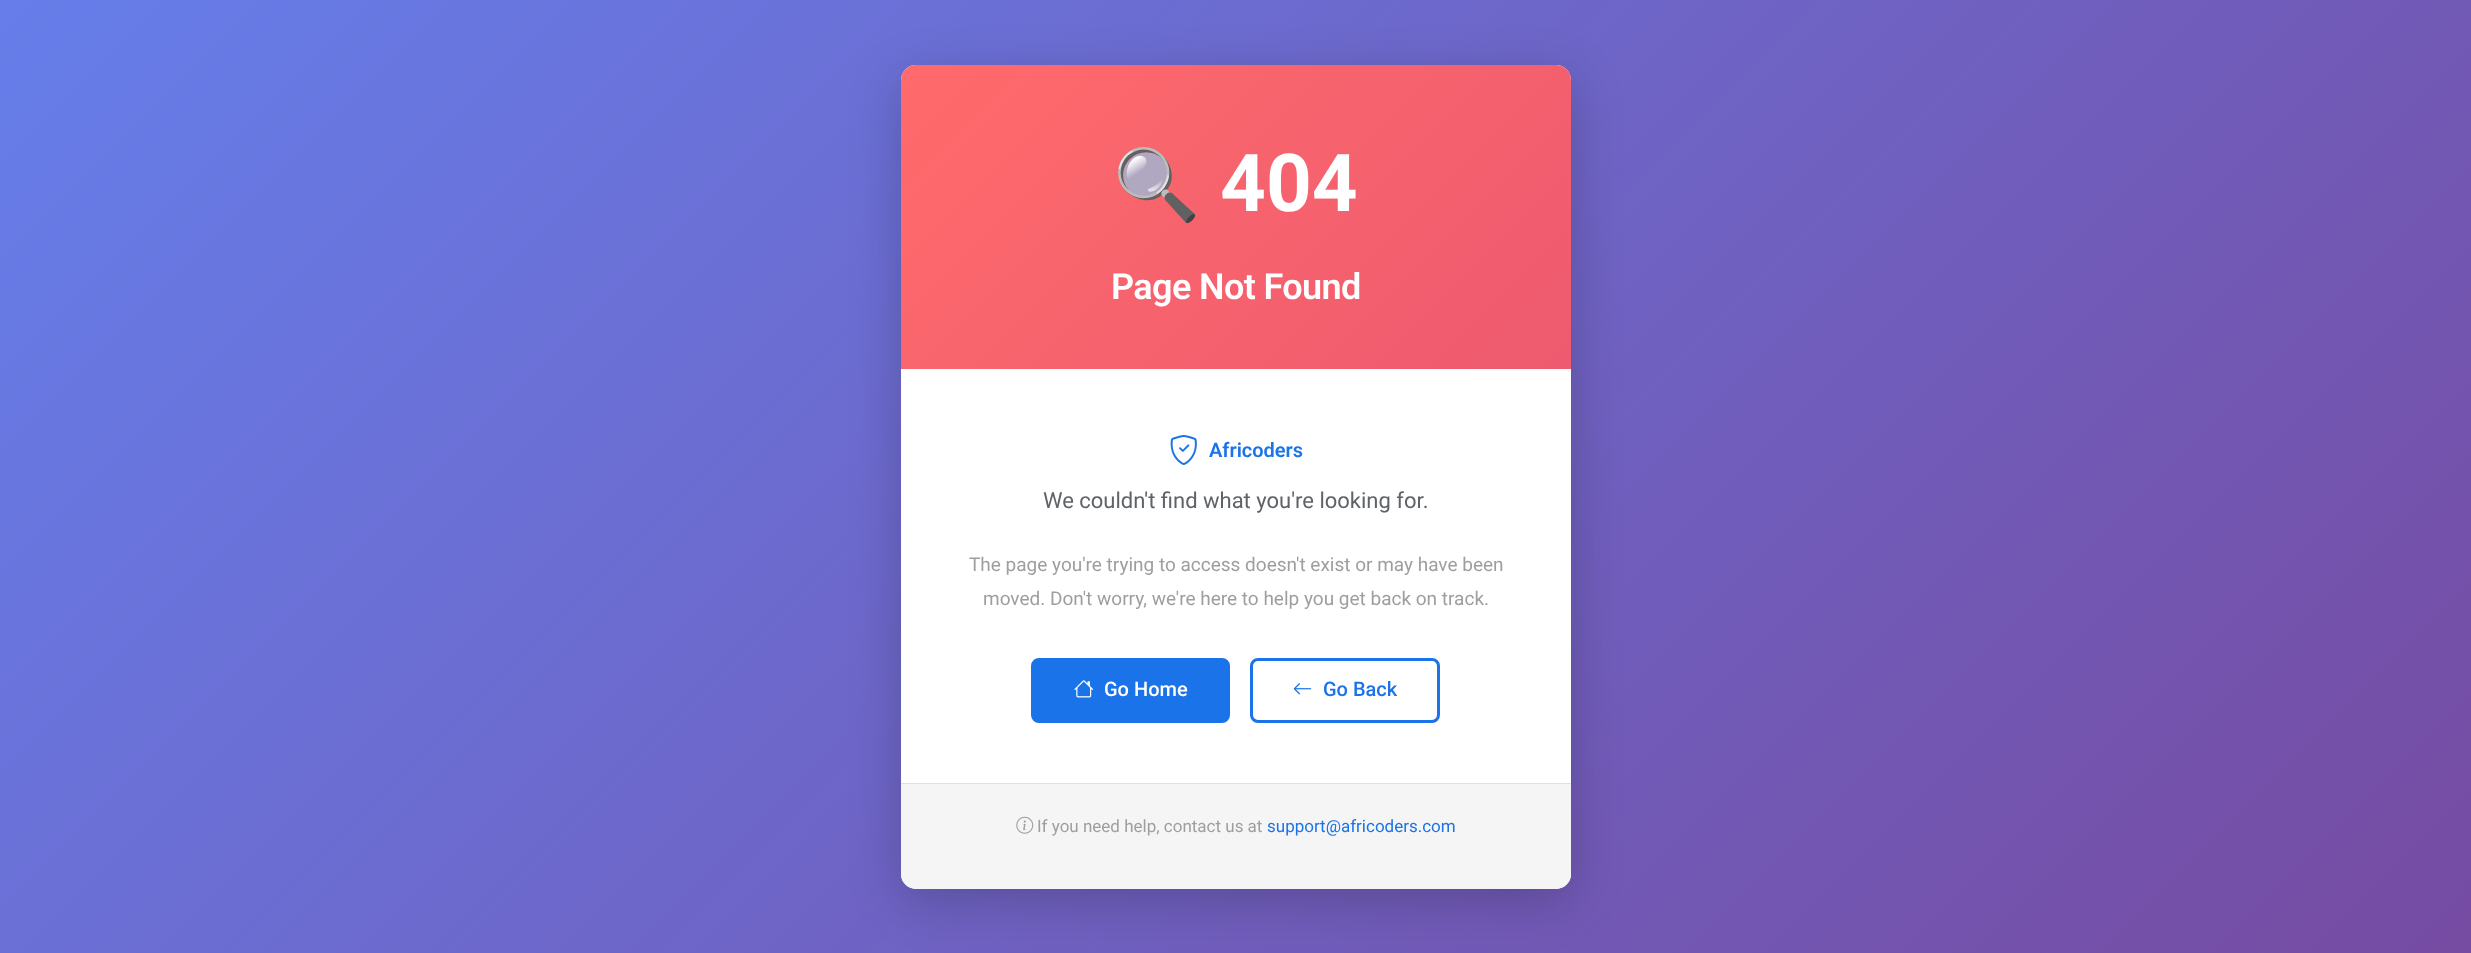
<!DOCTYPE html>
<meta charset="utf-8">
<style>body { margin: 0 } canvas { display: block }</style>
<canvas id="canvas" width="2471" height="953"></canvas>
<img id="img1" src="img_01.png" hidden>
<img id="img2" src="img_02.png" hidden>
<img id="img3" src="img_03.png" hidden>
<img id="img4" src="img_04.png" hidden>
<script>
window.onload = function () {
	const canvas = document.getElementById("canvas");
	const ctx = canvas.getContext("2d");
	ctx.miterLimit = 4;
	ctx.fontKerning = "normal";
	function txt(s, x, y) {
		ctx.fillText(s, x, y);
	}
	function fill(x, y, w, h) {
		ctx.fillRect(x, y, w, h);
	}
	function round(x, y, w, h, r) {
		ctx.beginPath();
		ctx.roundRect(x, y, w, h, r);
		ctx.fill();
	}
	function img(id, x, y, w, h) {
		ctx.drawImage(document.getElementById(id), x, y, w, h);
	}
	let gradient;

	ctx.fillStyle = "#FFFFFF";
	fill(0, 0, 2471, 953);
	gradient = ctx.createLinearGradient(379, -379, 2092, 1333);
	gradient.addColorStop(0, "#667EEA");
	gradient.addColorStop(1, "#764BA2");
	ctx.fillStyle = gradient;
	fill(0, 0, 2471, 953);
	ctx.fillStyle = "rgba(0, 0, 0, 0.2)";
	ctx.filter = "blur(25px)";
	ctx.beginPath();
	ctx.roundRect(901, 78, 670, 823, 15);
	ctx.fill();
	ctx.filter = "none";
	ctx.fillStyle = "#FFFFFF";
	round(901, 65, 670, 824, 15);
	gradient = ctx.createLinearGradient(993, -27, 1480, 460);
	gradient.addColorStop(0, "#FF6B6B");
	gradient.addColorStop(1, "#EE5A6F");
	ctx.fillStyle = gradient;
	ctx.beginPath();
	ctx.roundRect(901, 65, 670, 304, [15, 15, 0, 0]);
	ctx.fill();
	img("img1", 1170, 435, 27, 30);
	ctx.fillStyle = "#1A73E8";
	ctx.beginPath();
	ctx.roundRect(1032.5, 659.5, 196, 62, 6.5);
	ctx.fill();
	ctx.strokeStyle = "#1A73E8";
	ctx.lineWidth = 3;
	ctx.stroke();
	img("img2", 1074, 680, 20, 18);
	ctx.beginPath();
	ctx.roundRect(1251.5, 659.5, 187, 62, 6.5);
	ctx.stroke();
	img("img3", 1293, 683, 19, 12);
	ctx.fillStyle = "#F5F5F5";
	ctx.beginPath();
	ctx.roundRect(901, 783, 670, 106, [0, 0, 15, 15]);
	ctx.fill();
	ctx.fillStyle = "#E0E0E0";
	fill(901, 783, 670, 1);
	img("img4", 1016, 816, 18, 18);
	ctx.font = "bold 70px Noto Color Emoji";
	ctx.fillStyle = "#FEF0F0";
	txt("🔍", 1113, 209);
	ctx.font = "bold 80px Roboto";
	ctx.fillStyle = "#FFFFFF";
	txt("404", 1220, 211);
	ctx.letterSpacing = "-0.6px";
	ctx.font = "600 36px Roboto";
	txt("Page Not Found", 1111, 299);
	ctx.letterSpacing = "0px";
	ctx.font = "600 20px Roboto";
	ctx.fillStyle = "#1A73E8";
	txt("Africoders", 1209, 457);
	ctx.font = "22px Roboto";
	ctx.fillStyle = "#5F6368";
	txt("We couldn't find what you're looking for.", 1043, 508);
	ctx.font = "19px Roboto";
	ctx.fillStyle = "#9E9E9E";
	txt("The page you're trying to access doesn't exist or may have been", 969, 571);
	txt("moved. Don't worry, we're here to help you get back on track.", 983, 605);
	ctx.font = "500 20px Roboto";
	ctx.fillStyle = "#FFFFFF";
	txt("Go Home", 1104, 696);
	ctx.fillStyle = "#1A73E8";
	txt("Go Back", 1323, 696);
	ctx.font = "17px Roboto";
	ctx.fillStyle = "#9E9E9E";
	txt("If you need help, contact us at", 1037, 832);
	ctx.fillStyle = "#1A73E8";
	txt("support@africoders.com", 1267, 832);
};
</script>
